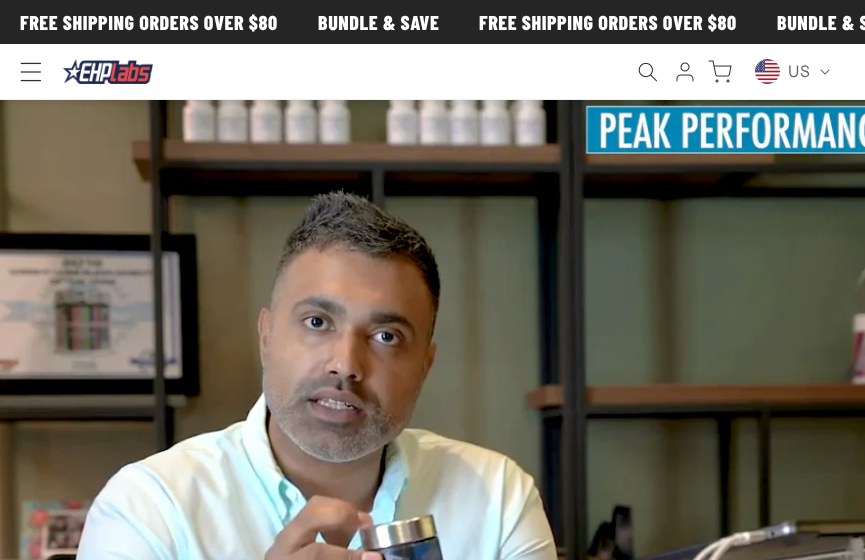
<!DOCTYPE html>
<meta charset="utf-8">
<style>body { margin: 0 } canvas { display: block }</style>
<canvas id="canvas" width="865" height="560"></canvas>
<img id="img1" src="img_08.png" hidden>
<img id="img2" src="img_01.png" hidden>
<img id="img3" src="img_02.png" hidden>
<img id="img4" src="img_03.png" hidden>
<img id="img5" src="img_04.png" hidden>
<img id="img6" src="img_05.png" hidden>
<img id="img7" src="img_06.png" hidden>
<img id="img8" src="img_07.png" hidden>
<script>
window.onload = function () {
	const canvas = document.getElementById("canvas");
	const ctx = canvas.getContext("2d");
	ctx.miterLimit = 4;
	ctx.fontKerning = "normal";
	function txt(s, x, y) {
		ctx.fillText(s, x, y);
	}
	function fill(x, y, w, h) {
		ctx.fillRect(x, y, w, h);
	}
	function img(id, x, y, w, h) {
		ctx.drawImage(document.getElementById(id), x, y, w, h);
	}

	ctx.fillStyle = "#FFFFFF";
	fill(0, 0, 865, 560);
	ctx.fillStyle = "#252525";
	fill(0, 0, 865, 44);
	img("img1", 0, 100, 865, 460);
	ctx.save();
	ctx.beginPath();
	ctx.moveTo(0, 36);
	ctx.lineTo(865, 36);
	ctx.lineTo(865, 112);
	ctx.lineTo(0, 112);
	ctx.closePath();
	ctx.moveTo(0, 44);
	ctx.lineTo(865, 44);
	ctx.lineTo(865, 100);
	ctx.lineTo(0, 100);
	ctx.closePath();
	ctx.clip("evenodd");
	ctx.fillStyle = "rgba(0, 0, 0, 0.1)";
	ctx.filter = "blur(3px)";
	ctx.beginPath();
	ctx.rect(0, 46, 865, 56);
	ctx.fill();
	ctx.filter = "none";
	ctx.restore();
	ctx.fillStyle = "#F1F1F1";
	fill(0, 99, 865, 1);
	img("img2", 20, 62, 21, 20);
	img("img3", 63, 59, 90, 25);
	img("img4", 638, 62, 19, 20);
	img("img5", 676, 62, 18, 20);
	img("img6", 708, 60, 24, 23);
	img("img7", 755, 59, 25, 25);
	img("img8", 820, 69, 10, 6);
	ctx.letterSpacing = "0.6px";
	ctx.font = "800 20px Barlow Condensed";
	ctx.fillStyle = "#FFFFFF";
	txt("FREE SHIPPING ORDERS OVER $80", 20, 30);
	txt("BUNDLE & SAVE", 318, 30);
	txt("FREE SHIPPING ORDERS OVER $80", 479, 30);
	txt("BUNDLE & S", 777, 30);
	ctx.font = "16px Instrument Sans";
	ctx.fillStyle = "#626262";
	txt("US", 788, 77);
};
</script>
